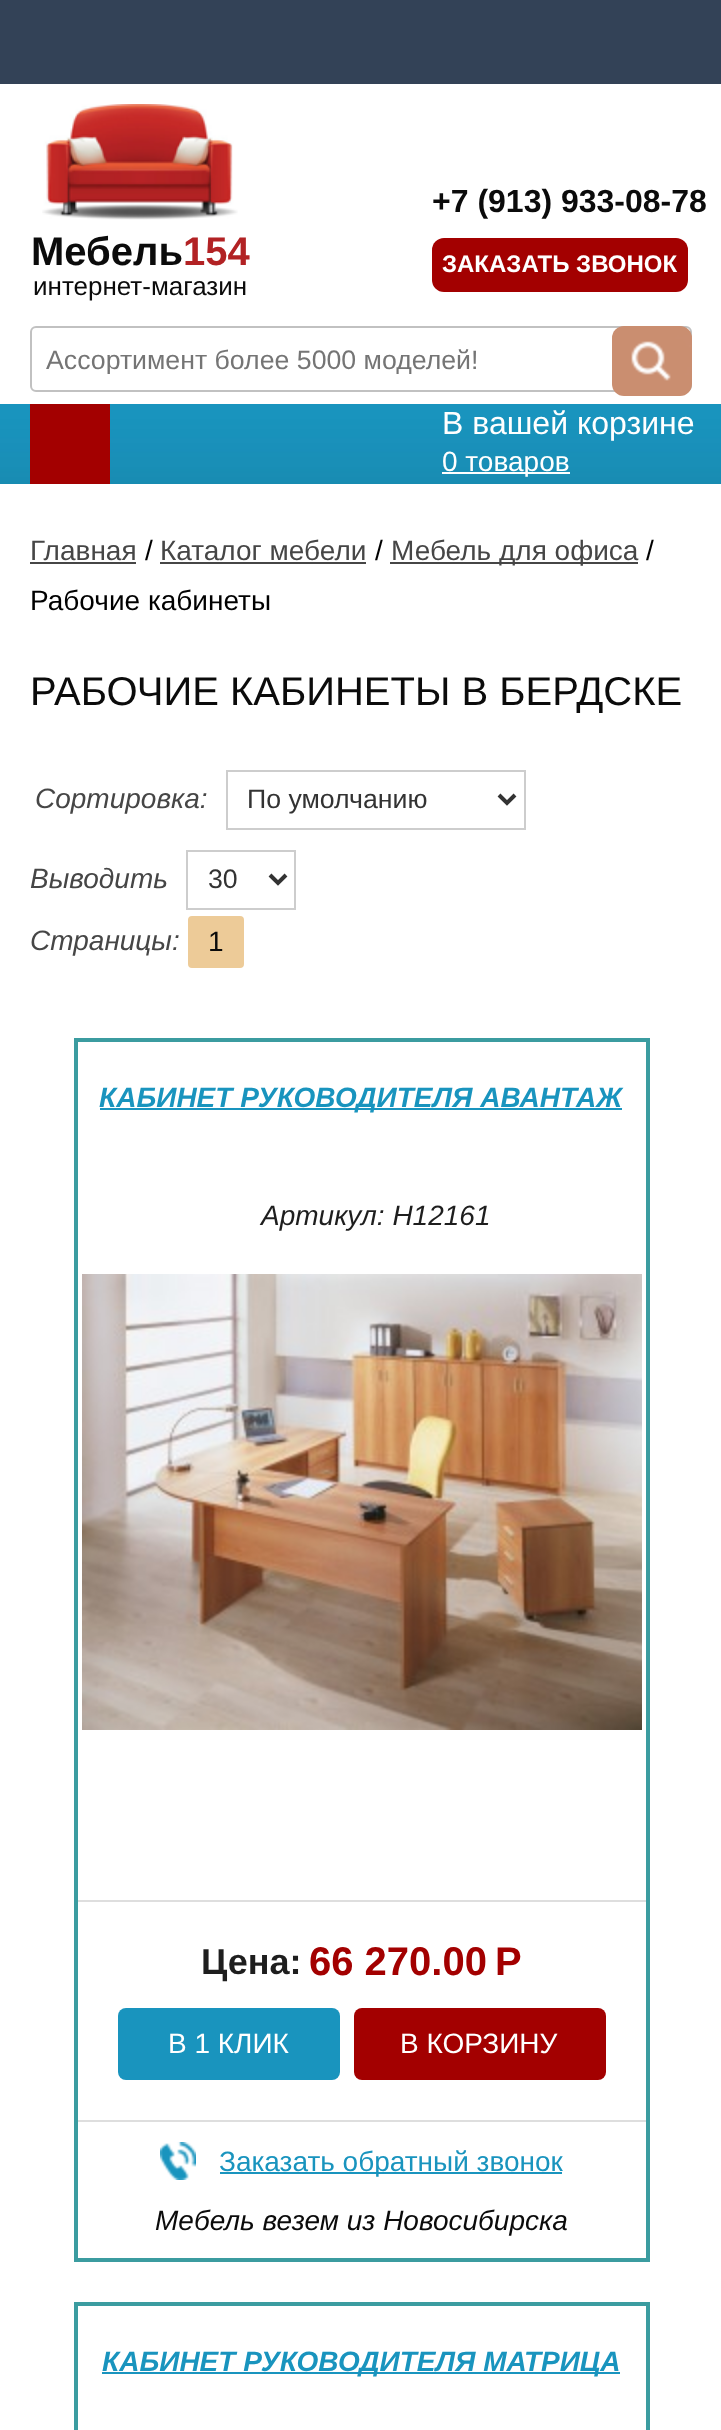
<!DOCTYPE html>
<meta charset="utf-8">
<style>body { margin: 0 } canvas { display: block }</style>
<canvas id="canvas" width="721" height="2430"></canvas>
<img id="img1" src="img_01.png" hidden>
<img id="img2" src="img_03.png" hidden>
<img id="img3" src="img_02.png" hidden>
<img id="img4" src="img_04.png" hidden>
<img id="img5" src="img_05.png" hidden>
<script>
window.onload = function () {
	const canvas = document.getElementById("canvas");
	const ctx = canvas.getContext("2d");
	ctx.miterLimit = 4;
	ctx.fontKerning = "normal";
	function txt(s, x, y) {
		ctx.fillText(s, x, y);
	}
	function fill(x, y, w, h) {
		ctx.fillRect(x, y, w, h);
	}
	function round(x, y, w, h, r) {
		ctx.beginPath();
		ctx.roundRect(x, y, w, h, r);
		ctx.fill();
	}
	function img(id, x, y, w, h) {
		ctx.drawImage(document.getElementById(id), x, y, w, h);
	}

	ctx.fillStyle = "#FFFFFF";
	fill(0, 0, 721, 2430);
	ctx.fillStyle = "#334257";
	fill(0, 0, 721, 84);
	ctx.fillStyle = "#A30000";
	round(432, 238, 256, 54, 12);
	ctx.beginPath();
	ctx.roundRect(31, 327, 660, 64, 5);
	ctx.strokeStyle = "#C1C1C1";
	ctx.lineWidth = 2;
	ctx.stroke();
	img("img1", 612, 326, 80, 70);
	img("img2", 0, 404, 721, 80);
	ctx.fillStyle = "#FFFFFF";
	fill(442, 472, 128, 2);
	img("img3", 42, 104, 196, 116);
	ctx.fillStyle = "#A30000";
	fill(30, 404, 80, 80);
	ctx.fillStyle = "#464646";
	fill(30, 562, 106, 2);
	fill(160, 562, 206, 2);
	fill(390, 562, 248, 2);
	ctx.strokeStyle = "#CDCDCD";
	ctx.strokeRect(227, 771, 298, 58);
	ctx.beginPath();
	ctx.moveTo(499, 795);
	ctx.lineTo(507, 803);
	ctx.lineTo(515, 795);
	ctx.strokeStyle = "#333333";
	ctx.lineWidth = 4;
	ctx.stroke();
	ctx.strokeStyle = "#CDCDCD";
	ctx.lineWidth = 2;
	ctx.strokeRect(187, 851, 108, 58);
	ctx.beginPath();
	ctx.moveTo(270, 875);
	ctx.lineTo(278, 883);
	ctx.lineTo(286, 875);
	ctx.strokeStyle = "#333333";
	ctx.lineWidth = 4;
	ctx.stroke();
	ctx.fillStyle = "#EDCB98";
	ctx.beginPath();
	ctx.roundRect(189, 917, 54, 50, 3);
	ctx.fill();
	ctx.strokeStyle = "#EDCB98";
	ctx.lineWidth = 2;
	ctx.stroke();
	ctx.strokeStyle = "#3B9CA0";
	ctx.lineWidth = 4;
	ctx.strokeRect(76, 1040, 572, 1220);
	ctx.fillStyle = "#1994BE";
	fill(100, 1108, 522, 2);
	img("img4", 82, 1274, 560, 456);
	ctx.fillStyle = "#DEDEDE";
	fill(78, 1900, 568, 2);
	fill(78, 2120, 568, 2);
	ctx.fillStyle = "#1994BE";
	round(118, 2008, 222, 72, 8);
	ctx.fillStyle = "#A30000";
	round(354, 2008, 252, 72, 8);
	img("img5", 160, 2142, 36, 38);
	ctx.fillStyle = "#1994BE";
	fill(220, 2172, 342, 2);
	ctx.strokeRect(76, 2304, 572, 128);
	fill(102, 2372, 518, 2);
	ctx.font = "bold 32px Liberation Sans";
	ctx.fillStyle = "#0B0B0B";
	txt("+7 (913) 933-08-78", 432, 212);
	ctx.font = "bold 24px Liberation Sans";
	ctx.fillStyle = "#FFFFFF";
	txt("ЗАКАЗАТЬ ЗВОНОК", 442, 272);
	ctx.save();
	ctx.beginPath();
	ctx.rect(46, 344, 590, 30);
	ctx.clip();
	ctx.font = "26.7px Liberation Sans";
	ctx.fillStyle = "#757575";
	txt("Ассортимент более 5000 моделей!", 46, 369);
	ctx.restore();
	ctx.font = "32px Liberation Sans";
	txt("В вашей корзине", 442, 434);
	ctx.font = "28px Liberation Sans";
	txt("0 товаров", 442, 471);
	ctx.font = "bold 40px Liberation Sans";
	ctx.fillStyle = "#0B0B0B";
	txt("Мебель", 31, 265);
	ctx.fillStyle = "#B22224";
	txt("154", 183, 265);
	ctx.font = "26px Liberation Sans";
	ctx.fillStyle = "#0B0B0B";
	txt("интернет-магазин", 33, 295);
	ctx.font = "28px Liberation Sans";
	ctx.fillStyle = "#464646";
	txt("Главная", 30, 560);
	ctx.fillStyle = "#000000";
	txt("/", 145, 560);
	ctx.fillStyle = "#464646";
	txt("Каталог мебели", 160, 560);
	ctx.fillStyle = "#000000";
	txt("/", 375, 560);
	ctx.fillStyle = "#464646";
	txt("Мебель для офиса", 391, 560);
	ctx.fillStyle = "#000000";
	txt("/", 646, 560);
	txt("Рабочие кабинеты", 30, 610);
	ctx.font = "40px Liberation Sans";
	ctx.fillStyle = "#0B0B0B";
	txt("РАБОЧИЕ КАБИНЕТЫ В БЕРДСКЕ", 30, 705);
	ctx.font = "italic 28px Liberation Sans";
	ctx.fillStyle = "#464646";
	txt("Сортировка:", 35, 808);
	ctx.font = "26.7px Liberation Sans";
	ctx.fillStyle = "#333333";
	txt("По умолчанию", 247, 808);
	ctx.font = "italic 28px Liberation Sans";
	ctx.fillStyle = "#464646";
	txt("Выводить", 30, 888);
	ctx.font = "26.7px Liberation Sans";
	ctx.fillStyle = "#333333";
	txt("30", 208, 888);
	ctx.font = "italic 28px Liberation Sans";
	ctx.fillStyle = "#464646";
	txt("Страницы:", 30, 950);
	ctx.font = "28px Liberation Sans";
	ctx.fillStyle = "#0B0B0B";
	txt("1", 208, 951);
	ctx.font = "italic bold 28px Liberation Sans";
	ctx.fillStyle = "#1994BE";
	txt("КАБИНЕТ РУКОВОДИТЕЛЯ АВАНТАЖ", 99, 1107);
	ctx.font = "italic 28px Liberation Sans";
	ctx.fillStyle = "#1E1E1E";
	txt("Артикул: H12161", 261, 1225);
	ctx.font = "bold 36px Liberation Sans";
	txt("Цена:", 201, 1974);
	ctx.font = "bold 40px Liberation Sans";
	ctx.fillStyle = "#A30000";
	txt("66 270.00", 309, 1975);
	txt("Р", 495, 1975);
	ctx.font = "28px Liberation Sans";
	ctx.fillStyle = "#FFFFFF";
	txt("В 1 КЛИК", 168, 2053);
	txt("В КОРЗИНУ", 400, 2053);
	ctx.fillStyle = "#1994BE";
	txt("Заказать обратный звонок", 219, 2171);
	ctx.font = "italic 28px Liberation Sans";
	ctx.fillStyle = "#0B0B0B";
	txt("Мебель везем из Новосибирска", 155, 2230);
	ctx.font = "italic bold 28px Liberation Sans";
	ctx.fillStyle = "#1994BE";
	txt("КАБИНЕТ РУКОВОДИТЕЛЯ МАТРИЦА", 102, 2371);
};
</script>
